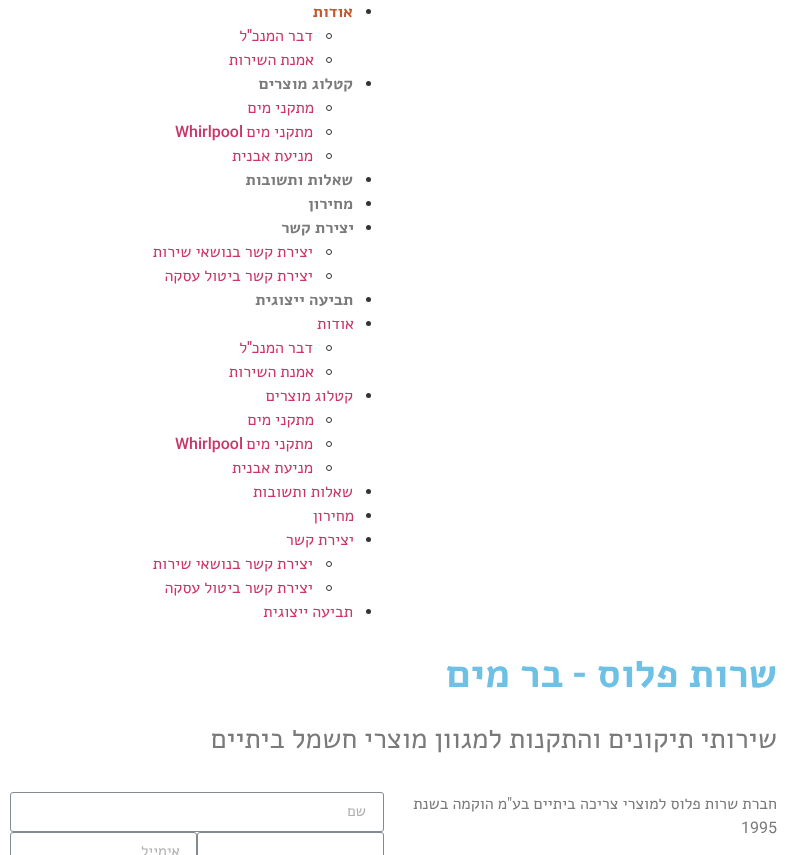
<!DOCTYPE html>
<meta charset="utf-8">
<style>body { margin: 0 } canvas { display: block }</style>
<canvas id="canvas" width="787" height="855"></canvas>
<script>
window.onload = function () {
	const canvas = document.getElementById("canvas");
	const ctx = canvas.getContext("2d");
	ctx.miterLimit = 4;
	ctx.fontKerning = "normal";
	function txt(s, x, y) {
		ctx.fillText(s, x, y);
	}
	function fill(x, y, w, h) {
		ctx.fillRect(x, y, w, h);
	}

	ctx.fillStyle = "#FFFFFF";
	fill(0, 0, 787, 855);
	ctx.fillStyle = "#333333";
	ctx.beginPath();
	ctx.arc(368.5, 11.5, 2.5, 0, Math.PI * 2);
	ctx.fill();
	ctx.beginPath();
	ctx.arc(329, 36, 2.5, 0, Math.PI * 2);
	ctx.strokeStyle = "#333333";
	ctx.stroke();
	ctx.beginPath();
	ctx.arc(329, 60, 2.5, 0, Math.PI * 2);
	ctx.stroke();
	ctx.beginPath();
	ctx.arc(368.5, 83.5, 2.5, 0, Math.PI * 2);
	ctx.fill();
	ctx.beginPath();
	ctx.arc(329, 108, 2.5, 0, Math.PI * 2);
	ctx.stroke();
	ctx.beginPath();
	ctx.arc(329, 132, 2.5, 0, Math.PI * 2);
	ctx.stroke();
	ctx.beginPath();
	ctx.arc(329, 156, 2.5, 0, Math.PI * 2);
	ctx.stroke();
	ctx.beginPath();
	ctx.arc(368.5, 179.5, 2.5, 0, Math.PI * 2);
	ctx.fill();
	ctx.beginPath();
	ctx.arc(368.5, 203.5, 2.5, 0, Math.PI * 2);
	ctx.fill();
	ctx.beginPath();
	ctx.arc(368.5, 227.5, 2.5, 0, Math.PI * 2);
	ctx.fill();
	ctx.beginPath();
	ctx.arc(329, 252, 2.5, 0, Math.PI * 2);
	ctx.stroke();
	ctx.beginPath();
	ctx.arc(329, 276, 2.5, 0, Math.PI * 2);
	ctx.stroke();
	ctx.beginPath();
	ctx.arc(368.5, 299.5, 2.5, 0, Math.PI * 2);
	ctx.fill();
	ctx.beginPath();
	ctx.arc(368.5, 323.5, 2.5, 0, Math.PI * 2);
	ctx.fill();
	ctx.beginPath();
	ctx.arc(329, 348, 2.5, 0, Math.PI * 2);
	ctx.stroke();
	ctx.beginPath();
	ctx.arc(329, 372, 2.5, 0, Math.PI * 2);
	ctx.stroke();
	ctx.beginPath();
	ctx.arc(368.5, 395.5, 2.5, 0, Math.PI * 2);
	ctx.fill();
	ctx.beginPath();
	ctx.arc(329, 420, 2.5, 0, Math.PI * 2);
	ctx.stroke();
	ctx.beginPath();
	ctx.arc(329, 444, 2.5, 0, Math.PI * 2);
	ctx.stroke();
	ctx.beginPath();
	ctx.arc(329, 468, 2.5, 0, Math.PI * 2);
	ctx.stroke();
	ctx.beginPath();
	ctx.arc(368.5, 491.5, 2.5, 0, Math.PI * 2);
	ctx.fill();
	ctx.beginPath();
	ctx.arc(368.5, 515.5, 2.5, 0, Math.PI * 2);
	ctx.fill();
	ctx.beginPath();
	ctx.arc(368.5, 539.5, 2.5, 0, Math.PI * 2);
	ctx.fill();
	ctx.beginPath();
	ctx.arc(329, 564, 2.5, 0, Math.PI * 2);
	ctx.stroke();
	ctx.beginPath();
	ctx.arc(329, 588, 2.5, 0, Math.PI * 2);
	ctx.stroke();
	ctx.beginPath();
	ctx.arc(368.5, 611.5, 2.5, 0, Math.PI * 2);
	ctx.fill();
	ctx.beginPath();
	ctx.roundRect(10.5, 792.5, 373, 39, 2.5);
	ctx.strokeStyle = "#818A91";
	ctx.stroke();
	ctx.beginPath();
	ctx.roundRect(197.5, 832.5, 186, 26, 2.5);
	ctx.stroke();
	ctx.beginPath();
	ctx.roundRect(10.5, 832.5, 186, 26, 2.5);
	ctx.stroke();
	ctx.direction = "rtl";
	ctx.font = "bold 16px Alef";
	ctx.fillStyle = "#C35729";
	txt("אודות", 353, 17);
	ctx.wordSpacing = "-0.5px";
	ctx.font = "16px Alef";
	ctx.fillStyle = "#CC3366";
	txt("דבר המנכ", 313, 41);
	ctx.wordSpacing = "0px";
	ctx.font = "500 16px Roboto";
	txt("\"", 252, 41);
	ctx.font = "16px Alef";
	txt("ל", 247, 41);
	ctx.wordSpacing = "-0.5px";
	txt("אמנת השירות", 314, 65);
	ctx.wordSpacing = "0px";
	ctx.font = "bold 16px Alef";
	ctx.fillStyle = "#7A7A7A";
	txt("קטלוג מוצרים", 353, 89);
	ctx.wordSpacing = "-0.5px";
	ctx.font = "16px Alef";
	ctx.fillStyle = "#CC3366";
	txt("מתקני מים", 314, 113);
	txt("מתקני מים", 313, 137);
	ctx.wordSpacing = "0px";
	ctx.direction = "ltr";
	ctx.font = "500 16px Roboto";
	txt("Whirlpool", 175, 137);
	ctx.wordSpacing = "-0.5px";
	ctx.direction = "rtl";
	ctx.font = "16px Alef";
	txt("מניעת אבנית", 313, 161);
	ctx.wordSpacing = "0px";
	ctx.font = "bold 16px Alef";
	ctx.fillStyle = "#7A7A7A";
	txt("שאלות ותשובות", 353, 185);
	txt("מחירון", 353, 209);
	txt("יצירת קשר", 354, 233);
	ctx.wordSpacing = "-0.5px";
	ctx.font = "16px Alef";
	ctx.fillStyle = "#CC3366";
	txt("יצירת קשר בנושאי שירות", 313, 257);
	txt("יצירת קשר ביטול עסקה", 313, 281);
	ctx.wordSpacing = "0px";
	ctx.font = "bold 16px Alef";
	ctx.fillStyle = "#7A7A7A";
	txt("תביעה ייצוגית", 353, 305);
	ctx.font = "16px Alef";
	ctx.fillStyle = "#CC3366";
	txt("אודות", 354, 329);
	ctx.wordSpacing = "-0.5px";
	txt("דבר המנכ", 313, 353);
	ctx.wordSpacing = "0px";
	ctx.font = "500 16px Roboto";
	txt("\"", 252, 353);
	ctx.font = "16px Alef";
	txt("ל", 247, 353);
	ctx.wordSpacing = "-0.5px";
	txt("אמנת השירות", 314, 377);
	txt("קטלוג מוצרים", 353, 401);
	txt("מתקני מים", 314, 425);
	txt("מתקני מים", 313, 449);
	ctx.wordSpacing = "0px";
	ctx.direction = "ltr";
	ctx.font = "500 16px Roboto";
	txt("Whirlpool", 175, 449);
	ctx.wordSpacing = "-0.5px";
	ctx.direction = "rtl";
	ctx.font = "16px Alef";
	txt("מניעת אבנית", 313, 473);
	txt("שאלות ותשובות", 353, 497);
	ctx.wordSpacing = "0px";
	txt("מחירון", 354, 521);
	ctx.wordSpacing = "-0.5px";
	txt("יצירת קשר", 354, 545);
	txt("יצירת קשר בנושאי שירות", 313, 569);
	txt("יצירת קשר ביטול עסקה", 313, 593);
	txt("תביעה ייצוגית", 353, 617);
	ctx.wordSpacing = "-1px";
	ctx.font = "bold 40px Alef";
	ctx.fillStyle = "#6EC1E4";
	txt("שרות פלוס", 777, 687);
	ctx.wordSpacing = "0px";
	ctx.font = "600 40px Roboto";
	txt("-", 587, 687);
	ctx.wordSpacing = "-1px";
	ctx.font = "bold 40px Alef";
	txt("בר מים", 563, 687);
	ctx.font = "28px Alef";
	ctx.fillStyle = "#7A7A7A";
	txt("שירותי תיקונים והתקנות למגוון מוצרי חשמל ביתיים", 777, 748);
	ctx.wordSpacing = "-0.5px";
	ctx.font = "16px Alef";
	txt("חברת שרות פלוס למוצרי צריכה ביתיים בע", 777, 809);
	ctx.wordSpacing = "0px";
	ctx.font = "16px Roboto";
	txt("\"", 512, 809);
	ctx.wordSpacing = "-0.5px";
	ctx.font = "16px Alef";
	txt("מ הוקמה בשנת", 507, 809);
	ctx.wordSpacing = "0px";
	ctx.direction = "ltr";
	ctx.font = "16px Roboto";
	txt("1995", 741, 833);
	ctx.direction = "rtl";
	ctx.font = "15px Alef";
	ctx.fillStyle = "#AFAFAF";
	txt("שם", 366, 816);
	txt("אימייל", 180, 856);
};
</script>
